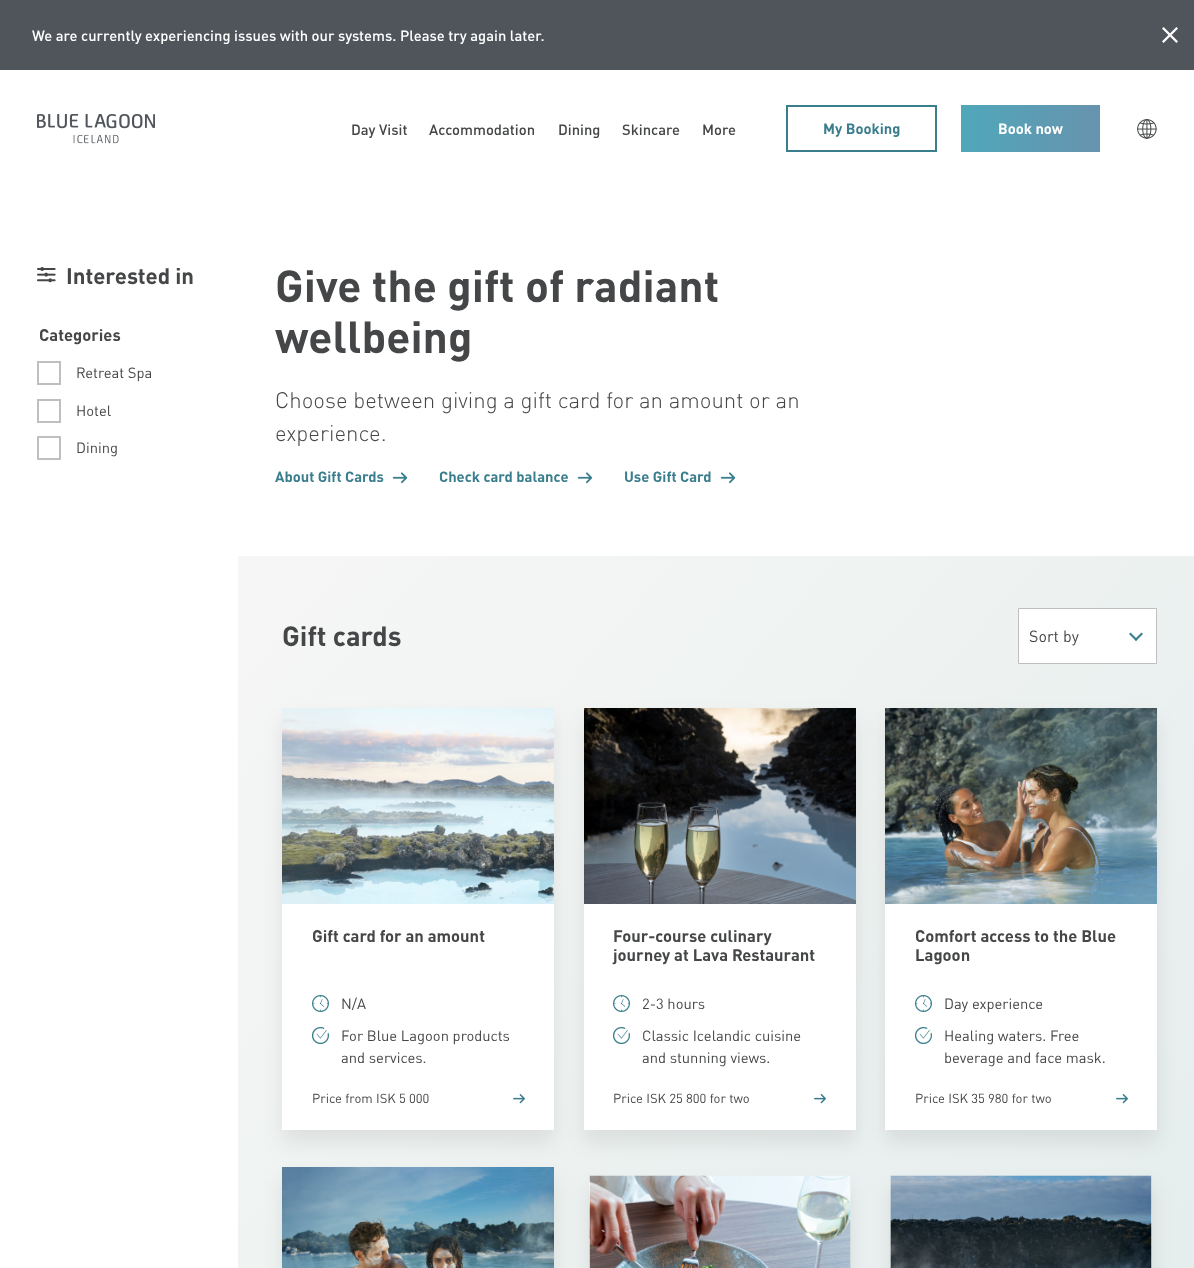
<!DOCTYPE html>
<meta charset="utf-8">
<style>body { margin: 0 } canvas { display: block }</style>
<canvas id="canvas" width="1194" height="1268"></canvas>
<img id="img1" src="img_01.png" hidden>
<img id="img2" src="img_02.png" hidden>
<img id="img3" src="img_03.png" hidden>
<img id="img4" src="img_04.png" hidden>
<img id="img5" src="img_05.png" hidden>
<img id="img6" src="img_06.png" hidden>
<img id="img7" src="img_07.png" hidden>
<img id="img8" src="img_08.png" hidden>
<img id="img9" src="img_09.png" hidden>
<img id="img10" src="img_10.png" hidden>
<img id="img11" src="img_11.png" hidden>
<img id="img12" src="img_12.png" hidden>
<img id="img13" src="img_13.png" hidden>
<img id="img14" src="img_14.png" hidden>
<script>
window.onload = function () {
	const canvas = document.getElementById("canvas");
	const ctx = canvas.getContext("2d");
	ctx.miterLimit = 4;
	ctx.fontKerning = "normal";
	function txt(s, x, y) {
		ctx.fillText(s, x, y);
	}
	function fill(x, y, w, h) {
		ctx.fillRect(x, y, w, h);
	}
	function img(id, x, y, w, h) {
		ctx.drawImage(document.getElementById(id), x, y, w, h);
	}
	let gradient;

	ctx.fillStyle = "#FFFFFF";
	fill(0, 0, 1194, 1268);
	ctx.fillStyle = "#50555B";
	fill(0, 0, 1194, 70);
	img("img1", 1162, 27, 16, 16);
	img("img2", 37, 114, 118, 30);
	ctx.strokeStyle = "#3A7E8D";
	ctx.lineWidth = 2;
	ctx.strokeRect(787, 106, 149, 45);
	gradient = ctx.createLinearGradient(961, 129, 1100, 129);
	gradient.addColorStop(0, "#50A7BA");
	gradient.addColorStop(1, "#6793AE");
	ctx.fillStyle = gradient;
	fill(961, 105, 139, 47);
	img("img3", 1137, 119, 20, 20);
	img("img4", 37, 267, 19, 16);
	ctx.strokeStyle = "#BFBFBF";
	ctx.strokeRect(38, 362, 22, 22);
	ctx.strokeRect(38, 400, 22, 22);
	ctx.strokeRect(38, 437, 22, 22);
	img("img5", 392, 472, 16, 12);
	img("img5", 577, 472, 16, 12);
	img("img5", 720, 472, 16, 12);
	gradient = ctx.createLinearGradient(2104, 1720, 485, 278);
	gradient.addColorStop(0.02, "#D8E7E6");
	gradient.addColorStop(0.97, "#F5F6F5");
	ctx.fillStyle = gradient;
	fill(238, 556, 956, 712);
	ctx.fillStyle = "#FFFFFF";
	ctx.beginPath();
	ctx.rect(1018.5, 608.5, 138, 55);
	ctx.fill();
	ctx.lineWidth = 1;
	ctx.stroke();
	ctx.fillStyle = "#3A7E8D";
	ctx.beginPath();
	ctx.moveTo(1134.5, 639.5);
	ctx.lineTo(1141.5, 632.5);
	ctx.lineTo(1143, 634);
	ctx.lineTo(1136, 641);
	ctx.closePath();
	ctx.fill();
	ctx.beginPath();
	ctx.moveTo(1129, 634);
	ctx.lineTo(1130.5, 632.5);
	ctx.lineTo(1137.5, 639.5);
	ctx.lineTo(1136, 641);
	ctx.closePath();
	ctx.fill();
	ctx.fillStyle = "rgba(0, 0, 0, 0.08)";
	ctx.filter = "blur(10px)";
	ctx.beginPath();
	ctx.rect(282, 720, 272, 422);
	ctx.fill();
	ctx.filter = "none";
	ctx.fillStyle = "#FFFFFF";
	fill(282, 904, 272, 226);
	img("img6", 282, 708, 272, 196);
	img("img7", 312, 995, 17, 17);
	img("img8", 312, 1027, 17, 17);
	img("img9", 513, 1094, 12, 10);
	ctx.fillStyle = "rgba(0, 0, 0, 0.08)";
	ctx.filter = "blur(10px)";
	ctx.beginPath();
	ctx.rect(584, 720, 272, 422);
	ctx.fill();
	ctx.filter = "none";
	ctx.fillStyle = "#FFFFFF";
	fill(584, 904, 272, 226);
	img("img10", 584, 708, 272, 196);
	img("img7", 613, 995, 17, 17);
	img("img8", 613, 1027, 17, 17);
	img("img9", 814, 1094, 12, 10);
	ctx.fillStyle = "rgba(0, 0, 0, 0.08)";
	ctx.filter = "blur(10px)";
	ctx.beginPath();
	ctx.rect(885, 720, 272, 422);
	ctx.fill();
	ctx.filter = "none";
	ctx.fillStyle = "#FFFFFF";
	fill(885, 904, 272, 226);
	img("img11", 885, 708, 272, 196);
	img("img7", 915, 995, 17, 17);
	img("img8", 915, 1027, 17, 17);
	img("img9", 1116, 1094, 12, 10);
	ctx.fillStyle = "rgba(0, 0, 0, 0.08)";
	ctx.filter = "blur(10px)";
	ctx.beginPath();
	ctx.rect(282, 1179, 272, 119);
	ctx.fill();
	ctx.filter = "none";
	img("img12", 282, 1167, 272, 101);
	ctx.filter = "blur(9.5px)";
	ctx.beginPath();
	ctx.rect(589, 1187, 261, 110);
	ctx.fill();
	ctx.filter = "none";
	ctx.fillStyle = "#FFFFFF";
	fill(589, 1176, 1, 92);
	img("img13", 589, 1175, 262, 93);
	ctx.fillStyle = "rgba(0, 0, 0, 0.08)";
	ctx.filter = "blur(9.5px)";
	ctx.beginPath();
	ctx.rect(891, 1187, 261, 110);
	ctx.fill();
	ctx.filter = "none";
	ctx.fillStyle = "#FFFFFF";
	fill(1151, 1176, 1, 92);
	img("img14", 890, 1175, 262, 93);
	ctx.font = "500 14.75px DIN";
	txt("We are currently experiencing issues with our systems. Please try again later.", 32, 41);
	ctx.fillStyle = "#454647";
	txt("Day Visit", 351, 135);
	txt("Accommodation", 429, 135);
	txt("Dining", 558, 135);
	txt("Skincare", 622, 135);
	txt("More", 702, 135);
	ctx.font = "bold 14.75px DIN";
	ctx.fillStyle = "#3A7E8D";
	txt("My Booking", 823, 134);
	ctx.fillStyle = "#FFFFFF";
	txt("Book now", 998, 134);
	ctx.font = "bold 22.2px DIN";
	ctx.fillStyle = "#454647";
	txt("Interested in", 66, 284);
	ctx.font = "bold 16.6px DIN";
	txt("Categories", 39, 341);
	ctx.font = "14.75px DIN";
	txt("Retreat Spa", 76, 378);
	txt("Hotel", 76, 416);
	txt("Dining", 76, 453);
	ctx.font = "bold 44.25px DIN";
	txt("Give the gift of radiant", 275, 302);
	txt("wellbeing", 275, 353);
	ctx.font = "300 22.2px DIN";
	txt("Choose between giving a gift card for an amount or an", 275, 408);
	txt("experience.", 275, 441);
	ctx.font = "bold 14.75px DIN";
	ctx.fillStyle = "#3A7E8D";
	txt("About Gift Cards", 275, 482);
	txt("Check card balance", 439, 482);
	txt("Use Gift Card", 624, 482);
	ctx.font = "bold 27.5px DIN";
	ctx.fillStyle = "#454647";
	txt("Gift cards", 282, 646);
	ctx.font = "16px DIN";
	txt("Sort by", 1029, 642);
	ctx.font = "bold 16.6px DIN";
	txt("Gift card for an amount", 312, 942);
	ctx.font = "14.75px DIN";
	txt("N/A", 341, 1009);
	txt("For Blue Lagoon products", 341, 1041);
	txt("and services.", 341, 1063);
	ctx.font = "13px DIN";
	txt("Price from ISK 5 000", 312, 1103);
	ctx.font = "bold 16.6px DIN";
	txt("Four-course culinary", 613, 942);
	txt("journey at Lava Restaurant", 613, 961);
	ctx.font = "14.75px DIN";
	txt("2-3 hours", 642, 1009);
	txt("Classic Icelandic cuisine", 642, 1041);
	txt("and stunning views.", 642, 1063);
	ctx.font = "13px DIN";
	txt("Price ISK 25 800 for two", 613, 1103);
	ctx.font = "bold 16.6px DIN";
	txt("Comfort access to the Blue", 915, 942);
	txt("Lagoon", 915, 961);
	ctx.font = "14.75px DIN";
	txt("Day experience", 944, 1009);
	txt("Healing waters. Free", 944, 1041);
	txt("beverage and face mask.", 944, 1063);
	ctx.font = "13px DIN";
	txt("Price ISK 35 980 for two", 915, 1103);
};
</script>
